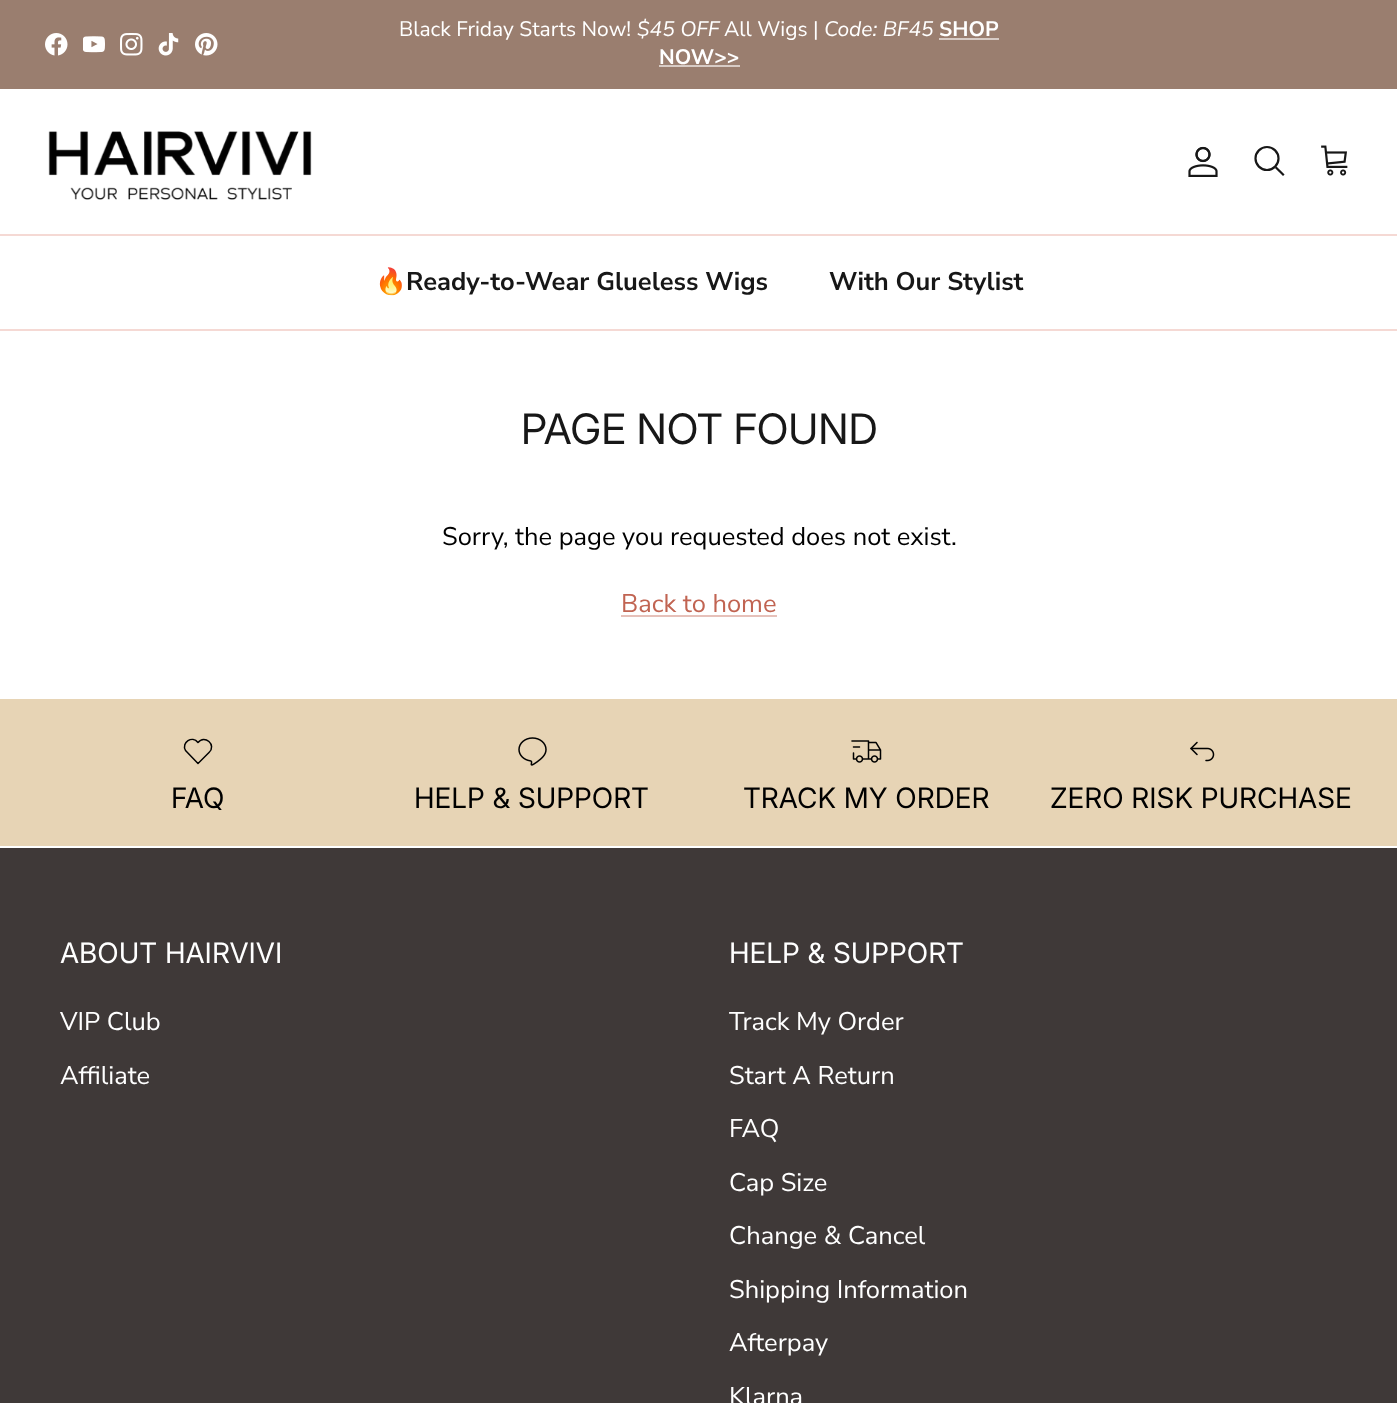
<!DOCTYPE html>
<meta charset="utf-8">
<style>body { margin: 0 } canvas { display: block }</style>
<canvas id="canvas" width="1397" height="1403"></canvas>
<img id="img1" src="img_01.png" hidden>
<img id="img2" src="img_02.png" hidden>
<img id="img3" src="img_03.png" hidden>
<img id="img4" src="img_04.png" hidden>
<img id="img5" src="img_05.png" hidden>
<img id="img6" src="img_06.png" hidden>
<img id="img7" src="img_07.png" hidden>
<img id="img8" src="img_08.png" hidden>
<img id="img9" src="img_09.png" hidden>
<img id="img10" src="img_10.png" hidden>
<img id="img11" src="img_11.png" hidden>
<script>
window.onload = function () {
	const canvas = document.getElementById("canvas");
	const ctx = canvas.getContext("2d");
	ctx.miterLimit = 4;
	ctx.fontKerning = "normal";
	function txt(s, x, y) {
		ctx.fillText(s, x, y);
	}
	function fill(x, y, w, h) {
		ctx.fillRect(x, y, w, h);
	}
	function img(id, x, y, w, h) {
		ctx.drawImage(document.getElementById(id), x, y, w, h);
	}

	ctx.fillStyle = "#FFFFFF";
	fill(0, 0, 1397, 1403);
	ctx.fillStyle = "#9A7E6F";
	fill(0, 0, 1397, 89);
	img("img1", 45, 33, 23, 23);
	img("img2", 83, 36, 22, 17);
	img("img3", 120, 33, 23, 23);
	img("img4", 158, 33, 21, 23);
	img("img5", 195, 33, 23, 23);
	ctx.fillStyle = "#D7CBC5";
	fill(939, 38, 60, 2);
	fill(659, 65, 81, 2);
	ctx.fillStyle = "#F5D9D4";
	fill(0, 234, 1397, 2);
	img("img6", 48, 131, 264, 69);
	img("img7", 1188, 146, 30, 31);
	ctx.beginPath();
	ctx.arc(1267, 158.5, 11.5, 0, Math.PI * 2);
	ctx.strokeStyle = "#171717";
	ctx.lineWidth = 2.2;
	ctx.stroke();
	ctx.beginPath();
	ctx.moveTo(1276.5, 168);
	ctx.lineTo(1283, 174.5);
	ctx.lineCap = "square";
	ctx.stroke();
	img("img8", 1321, 145, 27, 31);
	fill(0, 329, 1397, 2);
	ctx.fillStyle = "#E6C1BA";
	fill(621, 615, 156, 2);
	ctx.fillStyle = "#E7D4B5";
	fill(0, 699, 1397, 147);
	ctx.beginPath();
	ctx.moveTo(209, 752.5);
	ctx.lineTo(198, 763.5);
	ctx.lineTo(185.5, 750.5);
	ctx.bezierCurveTo(181, 742.5, 192.5, 735, 198, 742.5);
	ctx.bezierCurveTo(204.5, 734, 217, 745, 209, 752.5);
	ctx.strokeStyle = "#000000";
	ctx.lineWidth = 1.5;
	ctx.lineCap = "round";
	ctx.lineJoin = "round";
	ctx.stroke();
	img("img9", 518, 737, 29, 29);
	img("img10", 851, 740, 31, 23);
	img("img11", 1190, 741, 25, 21);
	ctx.fillStyle = "#3F3938";
	fill(0, 848, 1397, 555);
	ctx.font = "21px Nunito Sans";
	ctx.fillStyle = "#FFFFFF";
	txt("Black Friday Starts Now!", 399, 36);
	ctx.font = "italic 21px Nunito Sans";
	txt("$45 OFF", 637, 36);
	ctx.font = "21px Nunito Sans";
	txt("All Wigs |", 724, 36);
	ctx.font = "italic 21px Nunito Sans";
	txt("Code: BF45", 824, 36);
	ctx.font = "bold 21px Nunito Sans";
	txt("SHOP", 939, 36);
	txt("NOW>>", 659, 64);
	ctx.font = "bold 25.5px Noto Color Emoji";
	ctx.fillStyle = "#171717";
	txt("🔥", 375, 290);
	ctx.font = "bold 25.5px Nunito Sans";
	txt("Ready-to-Wear Glueless Wigs", 406, 290);
	txt("With Our Stylist", 829, 290);
	ctx.font = "42px Inter";
	txt("PAGE NOT FOUND", 521, 444);
	ctx.font = "25.5px Nunito Sans";
	ctx.fillStyle = "#000000";
	txt("Sorry, the page you requested does not exist.", 442, 545);
	ctx.fillStyle = "#C16452";
	txt("Back to home", 621, 612);
	ctx.font = "28.1px 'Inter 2'";
	ctx.fillStyle = "#000000";
	txt("FAQ", 171, 808);
	txt("HELP & SUPPORT", 414, 808);
	txt("TRACK MY ORDER", 743, 808);
	txt("ZERO RISK PURCHASE", 1050, 808);
	ctx.fillStyle = "#FFFFFF";
	txt("ABOUT HAIRVIVI", 60, 963);
	ctx.font = "25.5px Nunito Sans";
	txt("VIP Club", 60, 1030);
	txt("Affiliate", 60, 1084);
	ctx.font = "28.1px 'Inter 2'";
	txt("HELP & SUPPORT", 729, 963);
	ctx.font = "25.5px Nunito Sans";
	txt("Track My Order", 729, 1030);
	txt("Start A Return", 729, 1084);
	txt("FAQ", 729, 1137);
	txt("Cap Size", 729, 1191);
	txt("Change & Cancel", 729, 1244);
	txt("Shipping Information", 729, 1298);
	txt("Afterpay", 729, 1351);
	txt("Klarna", 729, 1405);
};
</script>
